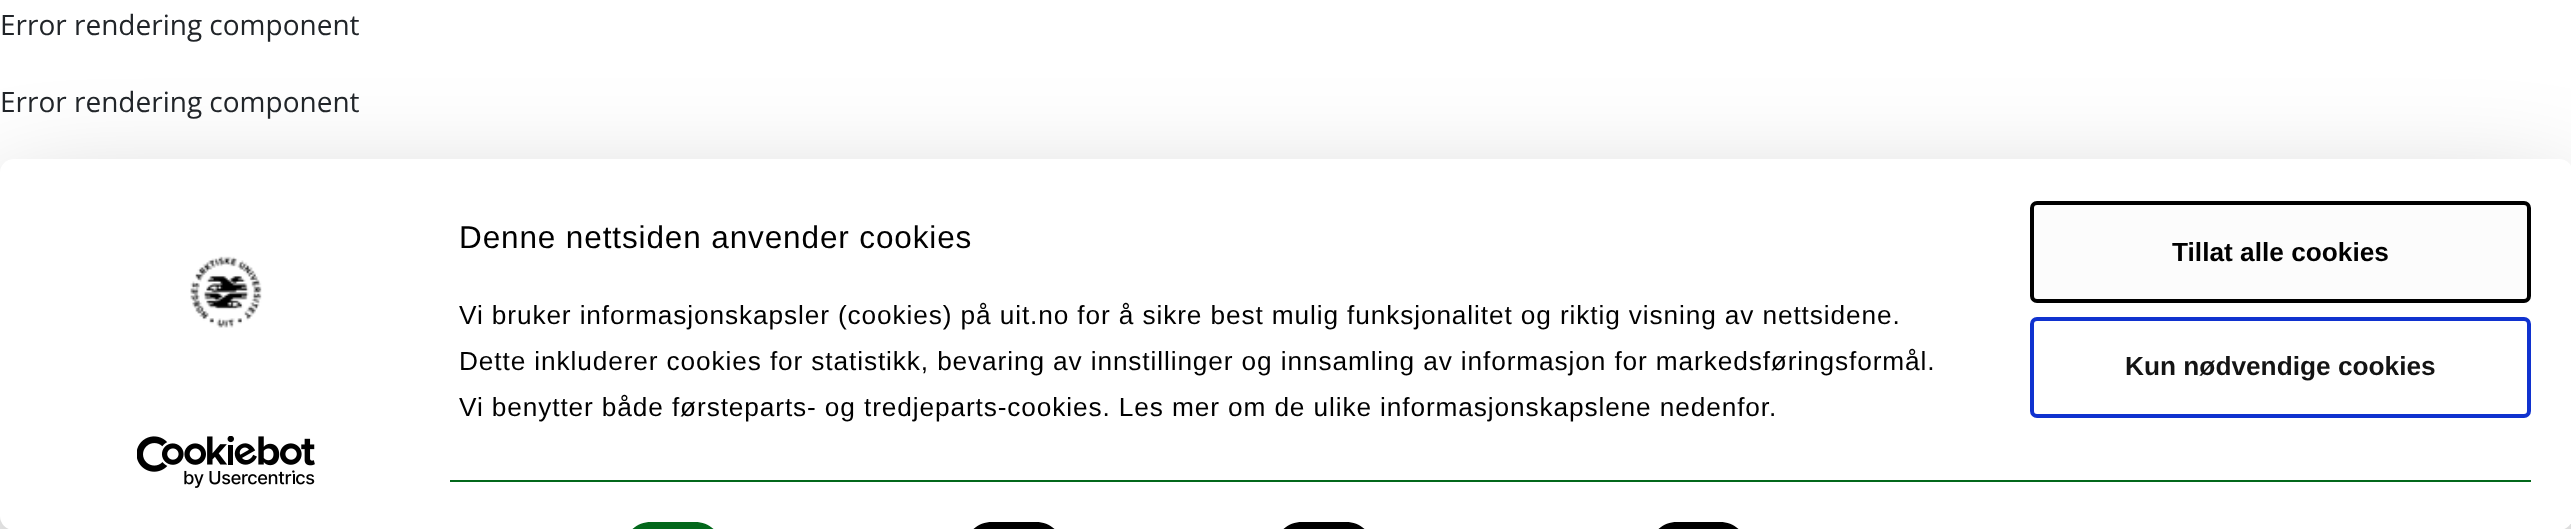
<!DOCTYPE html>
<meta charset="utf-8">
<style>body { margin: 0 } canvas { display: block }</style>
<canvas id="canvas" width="2571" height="529"></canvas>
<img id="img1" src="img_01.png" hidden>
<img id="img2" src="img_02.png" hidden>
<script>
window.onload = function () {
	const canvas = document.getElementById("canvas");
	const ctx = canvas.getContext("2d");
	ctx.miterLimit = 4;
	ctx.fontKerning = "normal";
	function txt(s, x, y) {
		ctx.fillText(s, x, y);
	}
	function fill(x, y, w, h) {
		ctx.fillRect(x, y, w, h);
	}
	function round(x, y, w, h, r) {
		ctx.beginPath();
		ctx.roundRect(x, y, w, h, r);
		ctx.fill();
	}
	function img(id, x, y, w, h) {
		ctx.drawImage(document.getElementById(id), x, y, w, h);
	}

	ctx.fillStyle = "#FFFFFF";
	fill(0, 0, 2571, 529);
	ctx.fillStyle = "rgba(0, 0, 0, 0.3)";
	ctx.filter = "blur(61px)";
	ctx.beginPath();
	ctx.roundRect(0, 212, 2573, 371, 14);
	ctx.fill();
	ctx.filter = "none";
	ctx.fillStyle = "#FFFFFF";
	round(0, 159, 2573, 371, 14);
	img("img1", 190, 256, 72, 72);
	img("img2", 137, 436, 178, 52);
	ctx.fillStyle = "#03681B";
	fill(450, 480, 2081, 2);
	ctx.beginPath();
	ctx.moveTo(651, 522);
	ctx.lineTo(695, 522);
	ctx.bezierCurveTo(710.5, 522, 723, 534.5, 723, 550);
	ctx.lineTo(723, 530);
	ctx.lineTo(623, 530);
	ctx.lineTo(623, 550);
	ctx.bezierCurveTo(623, 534.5, 635.5, 522, 651, 522);
	ctx.closePath();
	ctx.fill();
	ctx.fillStyle = "#000000";
	ctx.beginPath();
	ctx.moveTo(992, 522);
	ctx.lineTo(1036, 522);
	ctx.bezierCurveTo(1051.5, 522, 1064, 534.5, 1064, 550);
	ctx.lineTo(1064, 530);
	ctx.lineTo(964, 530);
	ctx.lineTo(964, 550);
	ctx.bezierCurveTo(964, 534.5, 976.5, 522, 992, 522);
	ctx.closePath();
	ctx.fill();
	ctx.beginPath();
	ctx.moveTo(1302, 522);
	ctx.lineTo(1346, 522);
	ctx.bezierCurveTo(1361.5, 522, 1374, 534.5, 1374, 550);
	ctx.lineTo(1374, 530);
	ctx.lineTo(1274, 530);
	ctx.lineTo(1274, 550);
	ctx.bezierCurveTo(1274, 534.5, 1286.5, 522, 1302, 522);
	ctx.closePath();
	ctx.fill();
	ctx.beginPath();
	ctx.moveTo(1677, 522);
	ctx.lineTo(1720, 522);
	ctx.bezierCurveTo(1735.5, 522, 1748, 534.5, 1748, 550);
	ctx.lineTo(1748, 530);
	ctx.lineTo(1649, 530);
	ctx.lineTo(1649, 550);
	ctx.bezierCurveTo(1649, 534.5, 1661.5, 522, 1677, 522);
	ctx.closePath();
	ctx.fill();
	ctx.fillStyle = "#FCFCFC";
	ctx.beginPath();
	ctx.roundRect(2032, 203, 497, 98, 5);
	ctx.fill();
	ctx.strokeStyle = "#000000";
	ctx.lineWidth = 4;
	ctx.stroke();
	ctx.beginPath();
	ctx.roundRect(2032, 319, 497, 97, 5);
	ctx.strokeStyle = "#1032CF";
	ctx.stroke();
	ctx.font = "28px Open Sans";
	ctx.fillStyle = "#212529";
	txt("Error rendering component", 0, 35);
	txt("Error rendering component", 0, 112);
	ctx.letterSpacing = "0.88px";
	ctx.font = "31.5px Liberation Sans";
	ctx.fillStyle = "#000000";
	txt("Denne nettsiden anvender cookies", 459, 248);
	ctx.font = "26.25px Liberation Sans";
	txt("Vi bruker informasjonskapsler (cookies) på uit.no for å sikre best mulig funksjonalitet og riktig visning av nettsidene.", 459, 324);
	txt("Dette inkluderer cookies for statistikk, bevaring av innstillinger og innsamling av informasjon for markedsføringsformål.", 459, 370);
	txt("Vi benytter både førsteparts- og tredjeparts-cookies. Les mer om de ulike informasjonskapslene nedenfor.", 459, 416);
	ctx.letterSpacing = "0px";
	ctx.font = "bold 26.25px Liberation Sans";
	txt("Tillat alle cookies", 2172, 261);
	ctx.fillStyle = "#141414";
	txt("Kun nødvendige cookies", 2125, 375);
};
</script>
